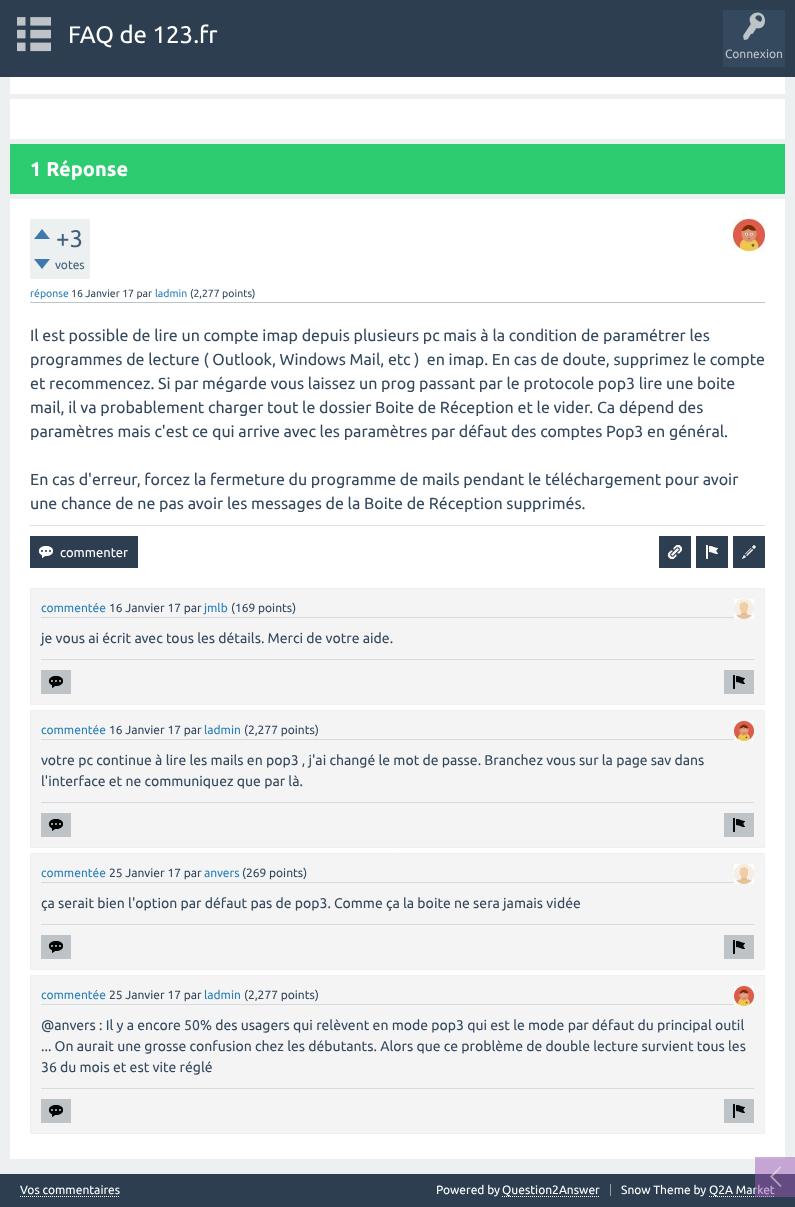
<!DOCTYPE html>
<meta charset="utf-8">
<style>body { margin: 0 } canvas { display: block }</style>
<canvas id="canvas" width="795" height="1207"></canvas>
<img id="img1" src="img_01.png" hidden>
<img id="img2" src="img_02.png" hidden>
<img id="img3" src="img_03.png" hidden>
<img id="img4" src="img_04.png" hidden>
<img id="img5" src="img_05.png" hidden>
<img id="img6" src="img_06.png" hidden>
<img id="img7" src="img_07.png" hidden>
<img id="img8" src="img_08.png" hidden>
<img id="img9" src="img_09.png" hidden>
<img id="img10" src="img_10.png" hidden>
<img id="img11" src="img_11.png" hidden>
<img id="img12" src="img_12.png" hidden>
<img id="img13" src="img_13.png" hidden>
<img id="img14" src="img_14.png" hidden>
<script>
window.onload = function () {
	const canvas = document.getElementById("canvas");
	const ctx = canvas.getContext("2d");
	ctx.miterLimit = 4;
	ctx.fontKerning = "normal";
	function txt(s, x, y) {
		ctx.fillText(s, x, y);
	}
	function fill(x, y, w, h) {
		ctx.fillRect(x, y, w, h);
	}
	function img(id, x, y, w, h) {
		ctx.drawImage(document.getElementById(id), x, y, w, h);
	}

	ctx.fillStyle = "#ECF0F1";
	fill(0, 0, 795, 1207);
	ctx.fillStyle = "#2C3E50";
	fill(0, 0, 795, 77);
	img("img1", 17, 17, 34, 35);
	ctx.fillStyle = "#34495E";
	fill(723, 10, 62, 57);
	img("img2", 743, 12, 22, 28);
	ctx.fillStyle = "#FFFFFF";
	fill(10, 77, 775, 17);
	fill(10, 99, 775, 40);
	ctx.fillStyle = "#2ECC71";
	fill(10, 144, 775, 50);
	ctx.fillStyle = "#FFFFFF";
	fill(10, 199, 775, 960);
	ctx.fillStyle = "#ECF0F1";
	fill(30, 219, 60, 60);
	img("img3", 34, 229, 16, 10);
	img("img4", 34, 259, 16, 10);
	img("img5", 733, 219, 32, 32);
	ctx.fillStyle = "#BDC3C7";
	fill(30, 302, 735, 1);
	ctx.fillStyle = "#DEE1E3";
	fill(30, 525, 735, 1);
	ctx.fillStyle = "#2C3E50";
	fill(30, 536, 108, 32);
	img("img6", 38, 546, 15, 12);
	fill(659, 536, 32, 32);
	img("img7", 667, 545, 15, 15);
	fill(696, 536, 32, 32);
	img("img8", 706, 545, 12, 14);
	fill(733, 536, 32, 32);
	img("img9", 742, 545, 14, 14);
	ctx.fillStyle = "#F4F4F4";
	ctx.beginPath();
	ctx.rect(30.5, 588.5, 734, 116);
	ctx.fill();
	ctx.strokeStyle = "#ECF0F1";
	ctx.stroke();
	ctx.fillStyle = "#D6DADB";
	fill(41, 617, 693, 1);
	img("img10", 734, 599, 20, 20);
	fill(41, 659, 713, 1);
	ctx.fillStyle = "#BDC3C7";
	fill(41, 670, 30, 24);
	img("img11", 48, 676, 15, 12);
	fill(724, 670, 30, 24);
	img("img12", 733, 675, 12, 14);
	ctx.fillStyle = "#F4F4F4";
	ctx.beginPath();
	ctx.rect(30.5, 710.5, 734, 137);
	ctx.fill();
	ctx.stroke();
	ctx.fillStyle = "#D6DADB";
	fill(41, 739, 693, 1);
	img("img13", 734, 721, 20, 20);
	fill(41, 802, 713, 1);
	ctx.fillStyle = "#BDC3C7";
	fill(41, 813, 30, 24);
	img("img11", 48, 819, 15, 12);
	fill(724, 813, 30, 24);
	img("img12", 733, 818, 12, 14);
	ctx.fillStyle = "#F4F4F4";
	ctx.beginPath();
	ctx.rect(30.5, 853.5, 734, 116);
	ctx.fill();
	ctx.stroke();
	ctx.fillStyle = "#D6DADB";
	fill(41, 882, 693, 1);
	img("img10", 734, 864, 20, 20);
	fill(41, 924, 713, 1);
	ctx.fillStyle = "#BDC3C7";
	fill(41, 935, 30, 24);
	img("img11", 48, 941, 15, 12);
	fill(724, 935, 30, 24);
	img("img12", 733, 940, 12, 14);
	ctx.fillStyle = "#F4F4F4";
	ctx.beginPath();
	ctx.rect(30.5, 975.5, 734, 158);
	ctx.fill();
	ctx.stroke();
	ctx.fillStyle = "#D6DADB";
	fill(41, 1004, 693, 1);
	img("img13", 734, 986, 20, 20);
	fill(41, 1088, 713, 1);
	ctx.fillStyle = "#BDC3C7";
	fill(41, 1099, 30, 24);
	img("img11", 48, 1105, 15, 12);
	fill(724, 1099, 30, 24);
	img("img12", 733, 1104, 12, 14);
	ctx.fillStyle = "#2C3E50";
	fill(0, 1174, 795, 33);
	ctx.beginPath();
	ctx.moveTo(20, 1196.5);
	ctx.lineTo(120, 1196.5);
	ctx.strokeStyle = "#FFFFFF";
	ctx.setLineDash([1, 1]);
	ctx.stroke();
	ctx.fillStyle = "#969FA8";
	fill(610, 1184, 1, 12);
	ctx.beginPath();
	ctx.moveTo(502, 1196.5);
	ctx.lineTo(600, 1196.5);
	ctx.stroke();
	ctx.beginPath();
	ctx.moveTo(709, 1196.5);
	ctx.lineTo(775, 1196.5);
	ctx.stroke();
	ctx.font = "24px Ubuntu";
	ctx.fillStyle = "#FFFFFF";
	txt("FAQ de 123.fr", 68, 43);
	ctx.font = "12px Ubuntu";
	ctx.fillStyle = "#BDC3C7";
	txt("Connexion", 725, 58);
	ctx.font = "bold 20px Ubuntu";
	ctx.fillStyle = "#FFFFFF";
	txt("1 Réponse", 30, 176);
	ctx.font = "24px Ubuntu";
	ctx.fillStyle = "#445F7A";
	txt("+3", 56, 247);
	ctx.font = "12px Ubuntu";
	txt("votes", 55, 269);
	ctx.font = "10.5px Ubuntu";
	ctx.fillStyle = "#2980B9";
	txt("réponse", 30, 297);
	ctx.fillStyle = "#34495E";
	txt("16 Janvier 17 par", 71, 297);
	ctx.fillStyle = "#2980B9";
	txt("ladmin", 155, 297);
	ctx.fillStyle = "#34495E";
	txt("(2,277 points)", 190, 297);
	ctx.font = "16px Ubuntu";
	txt("Il est possible de lire un compte imap depuis plusieurs pc mais à la condition de paramétrer les", 30, 341);
	txt("programmes de lecture ( Outlook, Windows Mail, etc )  en imap. En cas de doute, supprimez le compte", 30, 365);
	txt("et recommencez. Si par mégarde vous laissez un prog passant par le protocole pop3 lire une boite", 30, 389);
	txt("mail, il va probablement charger tout le dossier Boite de Réception et le vider. Ca dépend des", 30, 413);
	txt("paramètres mais c'est ce qui arrive avec les paramètres par défaut des comptes Pop3 en général.", 30, 437);
	txt("En cas d'erreur, forcez la fermeture du programme de mails pendant le téléchargement pour avoir", 30, 485);
	txt("une chance de ne pas avoir les messages de la Boite de Réception supprimés.", 30, 509);
	ctx.font = "13px Ubuntu";
	ctx.fillStyle = "#FFFFFF";
	txt("commenter", 60, 557);
	ctx.font = "12px Ubuntu";
	ctx.fillStyle = "#2980B9";
	txt("commentée", 41, 612);
	ctx.fillStyle = "#34495E";
	txt("16 Janvier 17 par", 109, 612);
	ctx.fillStyle = "#2980B9";
	txt("jmlb", 204, 612);
	ctx.fillStyle = "#34495E";
	txt("(169 points)", 231, 612);
	ctx.font = "14px Ubuntu";
	txt("je vous ai écrit avec tous les détails. Merci de votre aide.", 41, 643);
	ctx.font = "12px Ubuntu";
	ctx.fillStyle = "#2980B9";
	txt("commentée", 41, 734);
	ctx.fillStyle = "#34495E";
	txt("16 Janvier 17 par", 109, 734);
	ctx.fillStyle = "#2980B9";
	txt("ladmin", 204, 734);
	ctx.fillStyle = "#34495E";
	txt("(2,277 points)", 244, 734);
	ctx.font = "14px Ubuntu";
	txt("votre pc continue à lire les mails en pop3 , j'ai changé le mot de passe. Branchez vous sur la page sav dans", 41, 765);
	txt("l'interface et ne communiquez que par là.", 41, 786);
	ctx.font = "12px Ubuntu";
	ctx.fillStyle = "#2980B9";
	txt("commentée", 41, 877);
	ctx.fillStyle = "#34495E";
	txt("25 Janvier 17 par", 109, 877);
	ctx.fillStyle = "#2980B9";
	txt("anvers", 204, 877);
	ctx.fillStyle = "#34495E";
	txt("(269 points)", 242, 877);
	ctx.font = "14px Ubuntu";
	txt("ça serait bien l'option par défaut pas de pop3. Comme ça la boite ne sera jamais vidée", 41, 908);
	ctx.font = "12px Ubuntu";
	ctx.fillStyle = "#2980B9";
	txt("commentée", 41, 999);
	ctx.fillStyle = "#34495E";
	txt("25 Janvier 17 par", 109, 999);
	ctx.fillStyle = "#2980B9";
	txt("ladmin", 204, 999);
	ctx.fillStyle = "#34495E";
	txt("(2,277 points)", 244, 999);
	ctx.font = "14px Ubuntu";
	txt("@anvers : Il y a encore 50% des usagers qui relèvent en mode pop3 qui est le mode par défaut du principal outil", 41, 1030);
	txt("... On aurait une grosse confusion chez les débutants. Alors que ce problème de double lecture survient tous les", 41, 1051);
	txt("36 du mois et est vite réglé", 41, 1072);
	ctx.font = "12px Ubuntu";
	ctx.fillStyle = "#FFFFFF";
	txt("Vos commentaires", 20, 1194);
	txt("Powered by", 436, 1194);
	txt("Question2Answer", 502, 1194);
	txt("Snow Theme by", 621, 1194);
	txt("Q2A Market", 709, 1194);
	ctx.fillStyle = "rgba(155, 89, 182, 0.5)";
	fill(755, 1157, 40, 40);
	img("img14", 770, 1166, 12, 21);
};
</script>
